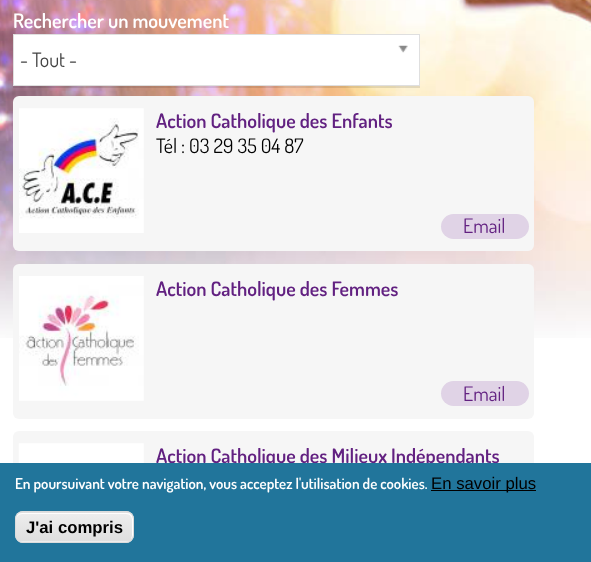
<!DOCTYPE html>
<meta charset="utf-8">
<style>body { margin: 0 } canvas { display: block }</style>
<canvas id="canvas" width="591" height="562"></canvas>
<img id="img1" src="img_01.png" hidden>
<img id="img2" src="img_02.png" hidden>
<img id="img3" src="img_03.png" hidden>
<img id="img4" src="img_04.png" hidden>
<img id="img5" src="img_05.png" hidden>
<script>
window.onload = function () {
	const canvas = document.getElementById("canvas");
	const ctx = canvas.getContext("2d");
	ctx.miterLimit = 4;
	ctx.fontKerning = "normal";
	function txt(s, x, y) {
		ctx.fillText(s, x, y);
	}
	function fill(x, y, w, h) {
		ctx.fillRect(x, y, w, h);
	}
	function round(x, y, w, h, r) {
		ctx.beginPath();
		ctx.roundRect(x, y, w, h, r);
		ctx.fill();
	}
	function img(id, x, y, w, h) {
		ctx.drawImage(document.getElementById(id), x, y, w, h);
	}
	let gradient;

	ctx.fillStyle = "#FFFFFF";
	fill(0, 0, 591, 562);
	img("img1", 0, 0, 591, 338);
	fill(14, 35, 405, 50);
	ctx.save();
	ctx.beginPath();
	ctx.rect(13, 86, 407, 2);
	ctx.clip();
	ctx.fillStyle = "rgba(0, 0, 0, 0.1)";
	ctx.filter = "blur(0.5px)";
	ctx.beginPath();
	ctx.rect(13, 35, 407, 53);
	ctx.fill();
	ctx.filter = "none";
	ctx.restore();
	ctx.strokeStyle = "#DFDFDF";
	ctx.strokeRect(13.5, 34.5, 406, 51);
	img("img2", 398, 45, 10, 8);
	ctx.fillStyle = "#F6F6F6";
	round(13, 96, 521, 155, 6);
	img("img3", 19, 108, 125, 125);
	ctx.fillStyle = "#E0D3E6";
	round(441, 214, 88, 25, 12.5);
	ctx.fillStyle = "#F6F6F6";
	round(13, 264, 521, 155, 6);
	img("img4", 19, 276, 125, 125);
	ctx.fillStyle = "#E0D3E6";
	round(441, 381, 88, 25, 12.5);
	ctx.fillStyle = "#F6F6F6";
	round(13, 431, 521, 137, 6);
	img("img5", 18, 443, 126, 20);
	ctx.font = "600 20px Dosis";
	ctx.fillStyle = "#FFFFFF";
	txt("Rechercher un mouvement", 13, 28);
	ctx.font = "20px Dosis";
	ctx.fillStyle = "#444444";
	txt("- Tout -", 20, 67);
	ctx.font = "600 20px Dosis";
	ctx.fillStyle = "#622181";
	txt("Action Catholique des Enfants", 156, 128);
	ctx.font = "20px Dosis";
	ctx.fillStyle = "#000000";
	txt("Tél : 03 29 35 04 87", 156, 153);
	ctx.fillStyle = "#622181";
	txt("Email", 463, 233);
	ctx.font = "600 20px Dosis";
	txt("Action Catholique des Femmes", 156, 296);
	ctx.font = "20px Dosis";
	txt("Email", 463, 401);
	ctx.font = "600 20px Dosis";
	txt("Action Catholique des Milieux Indépendants", 156, 463);
	ctx.fillStyle = "#21759B";
	fill(0, 463, 591, 99);
	ctx.font = "600 15px Dosis";
	ctx.fillStyle = "#FFFFFF";
	txt("En poursuivant votre navigation, vous acceptez l'utilisation de cookies.", 15, 489);
	ctx.fillStyle = "#000000";
	fill(431, 490, 105, 1);
	ctx.font = "16.75px Liberation Sans";
	txt("En savoir plus", 431, 489);
	ctx.save();
	ctx.beginPath();
	ctx.roundRect(15, 511, 119, 32, 8);
	ctx.clip();
	gradient = ctx.createLinearGradient(74, 484, 74, 513);
	gradient.addColorStop(0.05, "#EDEDED");
	gradient.addColorStop(1, "#DFDFDF");
	ctx.fillStyle = gradient;
	fill(15, 511, 119, 2);
	gradient = ctx.createLinearGradient(74, 513, 74, 541);
	gradient.addColorStop(0.05, "#EDEDED");
	gradient.addColorStop(1, "#DFDFDF");
	ctx.fillStyle = gradient;
	fill(15, 513, 119, 28);
	gradient = ctx.createLinearGradient(74, 541, 74, 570);
	gradient.addColorStop(0.05, "#EDEDED");
	gradient.addColorStop(1, "#DFDFDF");
	ctx.fillStyle = gradient;
	fill(15, 541, 119, 2);
	ctx.restore();
	ctx.fillStyle = "#FFFFFF";
	ctx.beginPath();
	ctx.moveTo(22, 514);
	ctx.lineTo(126, 514);
	ctx.bezierCurveTo(130, 514, 132, 517, 132, 520);
	ctx.lineTo(132, 536);
	ctx.lineTo(131, 539);
	ctx.bezierCurveTo(132, 538, 133, 537, 133, 535);
	ctx.lineTo(133, 519);
	ctx.bezierCurveTo(133, 516, 130, 513, 127, 513);
	ctx.lineTo(22, 513);
	ctx.bezierCurveTo(19, 513, 16, 516, 16, 519);
	ctx.lineTo(16, 520);
	ctx.bezierCurveTo(16, 517, 19, 514, 22, 514);
	ctx.closePath();
	ctx.fill();
	ctx.beginPath();
	ctx.roundRect(15.5, 511.5, 118, 31, 7.5);
	ctx.strokeStyle = "#DCDCDC";
	ctx.stroke();
	ctx.font = "bold 16.75px Liberation Sans";
	ctx.fillStyle = "#000000";
	txt("J'ai compris", 26, 533);
};
</script>
